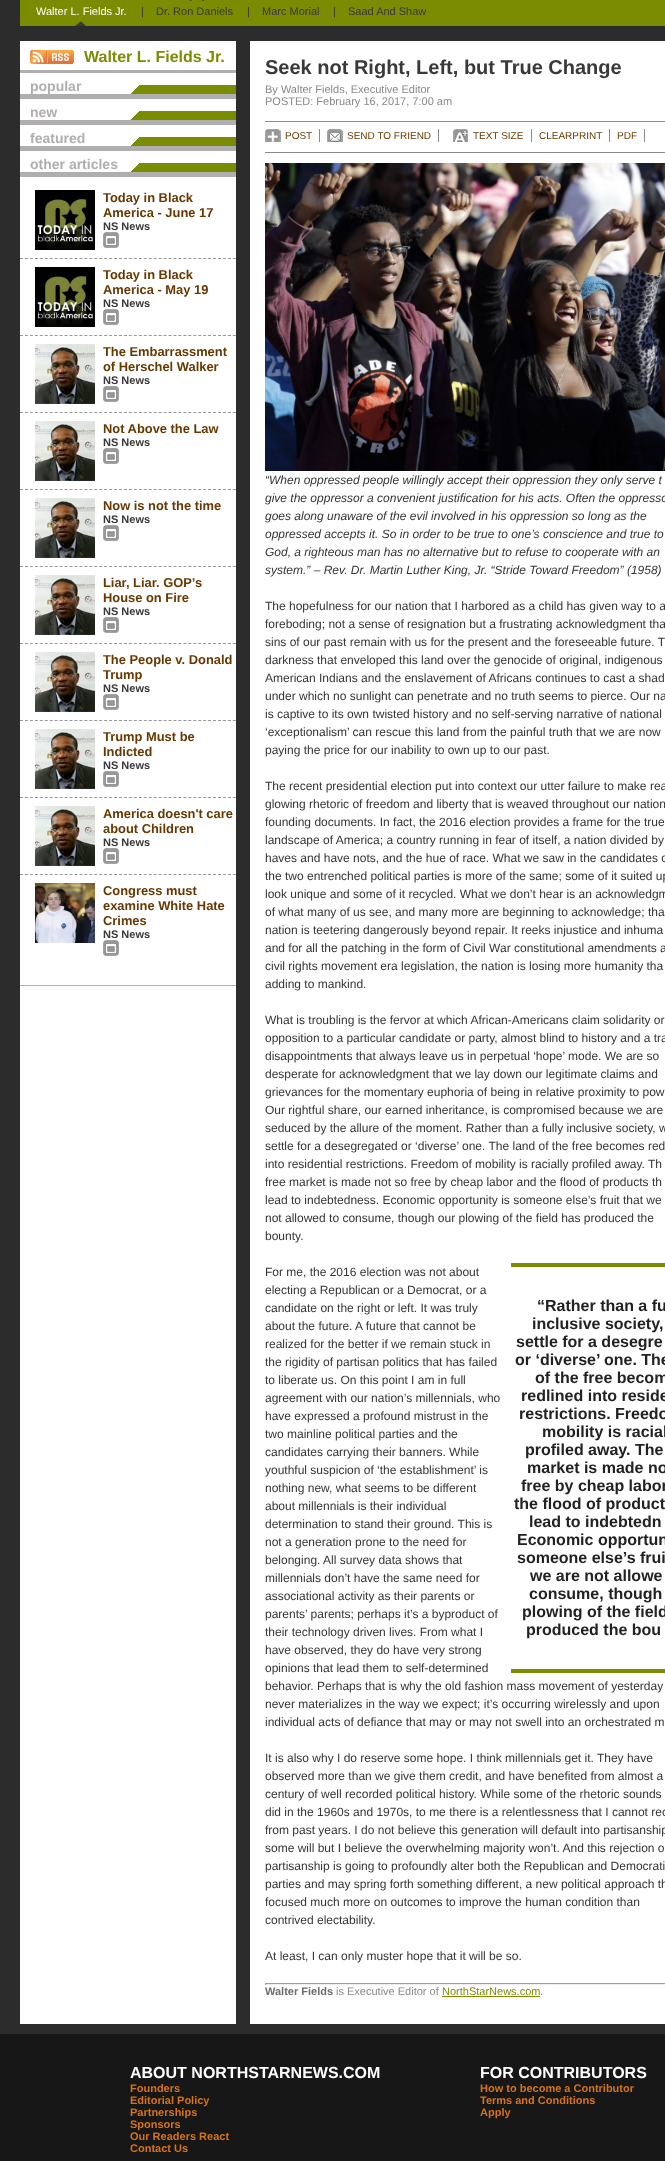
<!DOCTYPE html>
<meta charset="utf-8">
<style>body { margin: 0 } canvas { display: block }</style>
<canvas id="canvas" width="665" height="2161"></canvas>
<img id="img1" src="img_01.png" hidden>
<img id="img2" src="img_02.png" hidden>
<img id="img3" src="img_03.png" hidden>
<img id="img4" src="img_04.png" hidden>
<img id="img5" src="img_05.png" hidden>
<img id="img6" src="img_06.png" hidden>
<img id="img7" src="img_07.png" hidden>
<img id="img8" src="img_08.png" hidden>
<img id="img9" src="img_09.png" hidden>
<img id="img10" src="img_10.png" hidden>
<img id="img11" src="img_11.png" hidden>
<img id="img12" src="img_12.png" hidden>
<img id="img13" src="img_13.png" hidden>
<script>
window.onload = function () {
	const canvas = document.getElementById("canvas");
	const ctx = canvas.getContext("2d");
	ctx.miterLimit = 4;
	ctx.fontKerning = "normal";
	function txt(s, x, y) {
		ctx.fillText(s, x, y);
	}
	function fill(x, y, w, h) {
		ctx.fillRect(x, y, w, h);
	}
	function img(id, x, y, w, h) {
		ctx.drawImage(document.getElementById(id), x, y, w, h);
	}

	ctx.fillStyle = "#171717";
	fill(0, 0, 665, 2161);
	ctx.fillStyle = "#2C2C2C";
	fill(0, 0, 665, 2034);
	ctx.fillStyle = "#7A8C02";
	fill(20, 0, 645, 26);
	img("img1", 190, 0, 14, 1);
	img("img2", 75, 21, 12, 5);
	img("img3", 20, 41, 645, 1983);
	img("img4", 30, 50, 44, 14);
	ctx.fillStyle = "#B0AEAE";
	fill(20, 70, 216, 3);
	fill(20, 985, 216, 1);
	img("img5", 131, 85, 105, 9);
	fill(20, 94, 216, 5);
	img("img5", 131, 111, 105, 9);
	fill(20, 120, 216, 5);
	img("img5", 131, 137, 105, 9);
	fill(20, 146, 216, 5);
	img("img5", 131, 163, 105, 9);
	fill(20, 172, 216, 5);
	ctx.beginPath();
	ctx.moveTo(20, 258.5);
	ctx.lineTo(236, 258.5);
	ctx.strokeStyle = "#989898";
	ctx.setLineDash([3, 1.95]);
	ctx.stroke();
	img("img6", 35, 190, 60, 60);
	img("img7", 103, 232, 16, 16);
	ctx.beginPath();
	ctx.moveTo(20, 335.5);
	ctx.lineTo(236, 335.5);
	ctx.stroke();
	img("img6", 35, 267, 60, 60);
	img("img7", 103, 309, 16, 16);
	ctx.beginPath();
	ctx.moveTo(20, 412.5);
	ctx.lineTo(236, 412.5);
	ctx.stroke();
	img("img8", 35, 344, 60, 60);
	img("img7", 103, 386, 16, 16);
	ctx.beginPath();
	ctx.moveTo(20, 489.5);
	ctx.lineTo(236, 489.5);
	ctx.stroke();
	img("img8", 35, 421, 60, 60);
	img("img7", 103, 448, 16, 16);
	ctx.beginPath();
	ctx.moveTo(20, 566.5);
	ctx.lineTo(236, 566.5);
	ctx.stroke();
	img("img8", 35, 498, 60, 60);
	img("img7", 103, 525, 16, 16);
	ctx.beginPath();
	ctx.moveTo(20, 643.5);
	ctx.lineTo(236, 643.5);
	ctx.stroke();
	img("img8", 35, 575, 60, 60);
	img("img7", 103, 617, 16, 16);
	ctx.beginPath();
	ctx.moveTo(20, 720.5);
	ctx.lineTo(236, 720.5);
	ctx.stroke();
	img("img8", 35, 652, 60, 60);
	img("img7", 103, 694, 16, 16);
	ctx.beginPath();
	ctx.moveTo(20, 797.5);
	ctx.lineTo(236, 797.5);
	ctx.stroke();
	img("img8", 35, 729, 60, 60);
	img("img7", 103, 771, 16, 16);
	ctx.beginPath();
	ctx.moveTo(20, 874.5);
	ctx.lineTo(236, 874.5);
	ctx.stroke();
	img("img8", 35, 806, 60, 60);
	img("img7", 103, 848, 16, 16);
	img("img9", 35, 883, 60, 60);
	img("img7", 103, 940, 16, 16);
	ctx.fillStyle = "#898989";
	fill(265, 121, 400, 1);
	fill(265, 152, 400, 1);
	img("img10", 265, 129, 16, 13);
	fill(319, 129, 1, 13);
	img("img11", 327, 129, 16, 13);
	fill(438, 129, 1, 13);
	img("img12", 453, 129, 16, 13);
	fill(531, 129, 1, 13);
	fill(609, 129, 1, 13);
	fill(644, 129, 1, 13);
	img("img13", 265, 163, 400, 308);
	ctx.fillStyle = "#7A8C02";
	fill(511, 1263, 154, 4);
	fill(511, 1669, 154, 4);
	ctx.fillStyle = "#9F9F9F";
	fill(265, 1983, 400, 1);
	ctx.fillStyle = "#EEEEEE";
	fill(265, 1984, 400, 1);
	ctx.fillStyle = "#9F9F9F";
	fill(265, 1983, 1, 2);
	ctx.fillStyle = "#7A8C02";
	fill(442, 1996, 98, 1);
	ctx.font = "11px Liberation Sans";
	ctx.fillStyle = "#FFFFFF";
	txt("Walter L. Fields Jr.", 36, 15);
	ctx.fillStyle = "#3A3838";
	txt("|", 141, 15);
	txt("Dr. Ron Daniels", 156, 15);
	txt("|", 247, 15);
	txt("Marc Morial", 262, 15);
	txt("|", 333, 15);
	txt("Saad And Shaw", 348, 15);
	ctx.font = "bold 16px Liberation Sans";
	ctx.fillStyle = "#7A8C02";
	txt("Walter L. Fields Jr.", 84, 62);
	ctx.font = "bold 14px Liberation Sans";
	ctx.fillStyle = "#B0AEAE";
	txt("popular", 30, 91);
	txt("new", 30, 117);
	txt("featured", 30, 143);
	txt("other articles", 30, 169);
	ctx.font = "bold 12.9px Liberation Sans";
	ctx.fillStyle = "#673901";
	txt("Today in Black", 103, 202);
	txt("America - June 17", 103, 217);
	ctx.font = "bold 11px Liberation Sans";
	ctx.fillStyle = "#3A3838";
	txt("NS News", 103, 230);
	ctx.font = "bold 12.9px Liberation Sans";
	ctx.fillStyle = "#673901";
	txt("Today in Black", 103, 279);
	txt("America - May 19", 103, 294);
	ctx.font = "bold 11px Liberation Sans";
	ctx.fillStyle = "#3A3838";
	txt("NS News", 103, 307);
	ctx.font = "bold 12.9px Liberation Sans";
	ctx.fillStyle = "#673901";
	txt("The Embarrassment", 103, 356);
	txt("of Herschel Walker", 103, 371);
	ctx.font = "bold 11px Liberation Sans";
	ctx.fillStyle = "#3A3838";
	txt("NS News", 103, 384);
	ctx.font = "bold 12.9px Liberation Sans";
	ctx.fillStyle = "#673901";
	txt("Not Above the Law", 103, 433);
	ctx.font = "bold 11px Liberation Sans";
	ctx.fillStyle = "#3A3838";
	txt("NS News", 103, 446);
	ctx.font = "bold 12.9px Liberation Sans";
	ctx.fillStyle = "#673901";
	txt("Now is not the time", 103, 510);
	ctx.font = "bold 11px Liberation Sans";
	ctx.fillStyle = "#3A3838";
	txt("NS News", 103, 523);
	ctx.font = "bold 12.9px Liberation Sans";
	ctx.fillStyle = "#673901";
	txt("Liar, Liar. GOP’s", 103, 587);
	txt("House on Fire", 103, 602);
	ctx.font = "bold 11px Liberation Sans";
	ctx.fillStyle = "#3A3838";
	txt("NS News", 103, 615);
	ctx.font = "bold 12.9px Liberation Sans";
	ctx.fillStyle = "#673901";
	txt("The People v. Donald", 103, 664);
	txt("Trump", 103, 679);
	ctx.font = "bold 11px Liberation Sans";
	ctx.fillStyle = "#3A3838";
	txt("NS News", 103, 692);
	ctx.font = "bold 12.9px Liberation Sans";
	ctx.fillStyle = "#673901";
	txt("Trump Must be", 103, 741);
	txt("Indicted", 103, 756);
	ctx.font = "bold 11px Liberation Sans";
	ctx.fillStyle = "#3A3838";
	txt("NS News", 103, 769);
	ctx.font = "bold 12.9px Liberation Sans";
	ctx.fillStyle = "#673901";
	txt("America doesn't care", 103, 818);
	txt("about Children", 103, 833);
	ctx.font = "bold 11px Liberation Sans";
	ctx.fillStyle = "#3A3838";
	txt("NS News", 103, 846);
	ctx.font = "bold 12.9px Liberation Sans";
	ctx.fillStyle = "#673901";
	txt("Congress must", 103, 895);
	txt("examine White Hate", 103, 910);
	txt("Crimes", 103, 925);
	ctx.font = "bold 11px Liberation Sans";
	ctx.fillStyle = "#3A3838";
	txt("NS News", 103, 938);
	ctx.font = "bold 20px Liberation Sans";
	txt("Seek not Right, Left, but True Change", 265, 74);
	ctx.font = "11px Liberation Sans";
	ctx.fillStyle = "#898989";
	txt("By Walter Fields, Executive Editor", 265, 93);
	txt("POSTED: February 16, 2017, 7:00 am", 265, 105);
	ctx.font = "10px Liberation Sans";
	ctx.fillStyle = "#673901";
	txt("POST", 285, 139);
	txt("SEND TO FRIEND", 347, 139);
	txt("TEXT SIZE", 473, 139);
	txt("CLEARPRINT", 539, 139);
	txt("PDF", 617, 139);
	ctx.font = "italic 12px Liberation Sans";
	ctx.fillStyle = "#333535";
	txt("“When oppressed people willingly accept their oppression they only serve t", 265, 484);
	txt("give the oppressor a convenient justification for his acts. Often the oppresso", 265, 502);
	txt("goes along unaware of the evil involved in his oppression so long as the", 265, 520);
	txt("oppressed accepts it. So in order to be true to one’s conscience and true to", 265, 538);
	txt("God, a righteous man has no alternative but to refuse to cooperate with an", 265, 556);
	txt("system.” – Rev. Dr. Martin Luther King, Jr. “Stride Toward Freedom” (1958)", 265, 574);
	ctx.font = "12px Liberation Sans";
	txt("The hopefulness for our nation that I harbored as a child has given way to a", 265, 610);
	txt("foreboding; not a sense of resignation but a frustrating acknowledgment tha", 265, 628);
	txt("sins of our past remain with us for the present and the foreseeable future. T", 265, 646);
	txt("darkness that enveloped this land over the genocide of original, indigenous", 265, 664);
	txt("American Indians and the enslavement of Africans continues to cast a shad", 265, 682);
	txt("under which no sunlight can penetrate and no truth seems to pierce. Our na", 265, 700);
	txt("is captive to its own twisted history and no self-serving narrative of national", 265, 718);
	txt("‘exceptionalism’ can rescue this land from the painful truth that we are now", 265, 736);
	txt("paying the price for our inability to own up to our past.", 265, 754);
	txt("The recent presidential election put into context our utter failure to make rea", 265, 790);
	txt("glowing rhetoric of freedom and liberty that is weaved throughout our nation", 265, 808);
	txt("founding documents. In fact, the 2016 election provides a frame for the true", 265, 826);
	txt("landscape of America; a country running in fear of itself, a nation divided by", 265, 844);
	txt("haves and have nots, and the hue of race. What we saw in the candidates o", 265, 862);
	txt("the two entrenched political parties is more of the same; some of it suited up", 265, 880);
	txt("look unique and some of it recycled. What we don’t hear is an acknowledgm", 265, 898);
	txt("of what many of us see, and many more are beginning to acknowledge; tha", 265, 916);
	txt("nation is teetering dangerously beyond repair. It reeks injustice and inhuma", 265, 934);
	txt("and for all the patching in the form of Civil War constitutional amendments a", 265, 952);
	txt("civil rights movement era legislation, the nation is losing more humanity tha", 265, 970);
	txt("adding to mankind.", 265, 988);
	txt("What is troubling is the fervor at which African-Americans claim solidarity or", 265, 1024);
	txt("opposition to a particular candidate or party, almost blind to history and a tra", 265, 1042);
	txt("disappointments that always leave us in perpetual ‘hope’ mode. We are so", 265, 1060);
	txt("desperate for acknowledgment that we lay down our legitimate claims and", 265, 1078);
	txt("grievances for the momentary euphoria of being in relative proximity to pow", 265, 1096);
	txt("Our rightful share, our earned inheritance, is compromised because we are", 265, 1114);
	txt("seduced by the allure of the moment. Rather than a fully inclusive society, w", 265, 1132);
	txt("settle for a desegregated or ‘diverse’ one. The land of the free becomes red", 265, 1150);
	txt("into residential restrictions. Freedom of mobility is racially profiled away. Th", 265, 1168);
	txt("free market is made not so free by cheap labor and the flood of products th", 265, 1186);
	txt("lead to indebtedness. Economic opportunity is someone else’s fruit that we", 265, 1204);
	txt("not allowed to consume, though our plowing of the field has produced the", 265, 1222);
	txt("bounty.", 265, 1240);
	txt("For me, the 2016 election was not about", 265, 1276);
	txt("electing a Republican or a Democrat, or a", 265, 1294);
	txt("candidate on the right or left. It was truly", 265, 1312);
	txt("about the future. A future that cannot be", 265, 1330);
	txt("realized for the better if we remain stuck in", 265, 1348);
	txt("the rigidity of partisan politics that has failed", 265, 1366);
	txt("to liberate us. On this point I am in full", 265, 1384);
	txt("agreement with our nation’s millennials, who", 265, 1402);
	txt("have expressed a profound mistrust in the", 265, 1420);
	txt("two mainline political parties and the", 265, 1438);
	txt("candidates carrying their banners. While", 265, 1456);
	txt("youthful suspicion of ‘the establishment’ is", 265, 1474);
	txt("nothing new, what seems to be different", 265, 1492);
	txt("about millennials is their individual", 265, 1510);
	txt("determination to stand their ground. This is", 265, 1528);
	txt("not a generation prone to the need for", 265, 1546);
	txt("belonging. All survey data shows that", 265, 1564);
	txt("millennials don’t have the same need for", 265, 1582);
	txt("associational activity as their parents or", 265, 1600);
	txt("parents’ parents; perhaps it’s a byproduct of", 265, 1618);
	txt("their technology driven lives. From what I", 265, 1636);
	txt("have observed, they do have very strong", 265, 1654);
	txt("opinions that lead them to self-determined", 265, 1672);
	txt("behavior. Perhaps that is why the old fashion mass movement of yesterday", 265, 1690);
	txt("never materializes in the way we expect; it’s occurring wirelessly and upon", 265, 1708);
	txt("individual acts of defiance that may or may not swell into an orchestrated m", 265, 1726);
	txt("It is also why I do reserve some hope. I think millennials get it. They have", 265, 1762);
	txt("observed more than we give them credit, and have benefited from almost a", 265, 1780);
	txt("century of well recorded political history. While some of the rhetoric sounds", 265, 1798);
	txt("did in the 1960s and 1970s, to me there is a relentlessness that I cannot rec", 265, 1816);
	txt("from past years. I do not believe this generation will default into partisanship", 265, 1834);
	txt("some will but I believe the overwhelming majority won’t. And this rejection o", 265, 1852);
	txt("partisanship is going to profoundly alter both the Republican and Democrati", 265, 1870);
	txt("parties and may spring forth something different, a new political approach th", 265, 1888);
	txt("focused much more on outcomes to improve the human condition than", 265, 1906);
	txt("contrived electability.", 265, 1924);
	txt("At least, I can only muster hope that it will be so.", 265, 1960);
	ctx.font = "bold 16px Liberation Sans";
	ctx.fillStyle = "#222222";
	txt("“Rather than a fu", 537, 1311);
	txt("inclusive society,", 532, 1329);
	txt("settle for a desegre", 516, 1347);
	txt("or ‘diverse’ one. The", 515, 1365);
	txt("of the free becom", 535, 1383);
	txt("redlined into reside", 521, 1401);
	txt("restrictions. Freedo", 519, 1419);
	txt("mobility is racial", 542, 1437);
	txt("profiled away. The", 525, 1455);
	txt("market is made no", 527, 1473);
	txt("free by cheap labor", 521, 1491);
	txt("the flood of product", 514, 1509);
	txt("lead to indebtedn", 529, 1527);
	txt("Economic opportun", 517, 1545);
	txt("someone else’s frui", 517, 1563);
	txt("we are not allowe", 530, 1581);
	txt("consume, though", 529, 1599);
	txt("plowing of the field", 522, 1617);
	txt("produced the bou", 526, 1635);
	ctx.font = "bold 11px Liberation Sans";
	ctx.fillStyle = "#6D6D6D";
	txt("Walter Fields", 265, 1995);
	ctx.font = "11px Liberation Sans";
	ctx.fillStyle = "#898989";
	txt("is Executive Editor of", 336, 1995);
	ctx.fillStyle = "#7A8C02";
	txt("NorthStarNews.com", 442, 1995);
	ctx.fillStyle = "#898989";
	txt(".", 540, 1995);
	ctx.font = "bold 16px Liberation Sans";
	ctx.fillStyle = "#FFFFFF";
	txt("ABOUT NORTHSTARNEWS.COM", 130, 2078);
	ctx.font = "bold 11px Liberation Sans";
	ctx.fillStyle = "#D87318";
	txt("Founders", 130, 2092);
	txt("Editorial Policy", 130, 2104);
	txt("Partnerships", 130, 2116);
	txt("Sponsors", 130, 2128);
	txt("Our Readers React", 130, 2140);
	txt("Contact Us", 130, 2152);
	ctx.font = "bold 16px Liberation Sans";
	ctx.fillStyle = "#FFFFFF";
	txt("FOR CONTRIBUTORS", 480, 2078);
	ctx.font = "bold 11px Liberation Sans";
	ctx.fillStyle = "#D87318";
	txt("How to become a Contributor", 480, 2092);
	txt("Terms and Conditions", 480, 2104);
	txt("Apply", 480, 2116);
};
</script>
